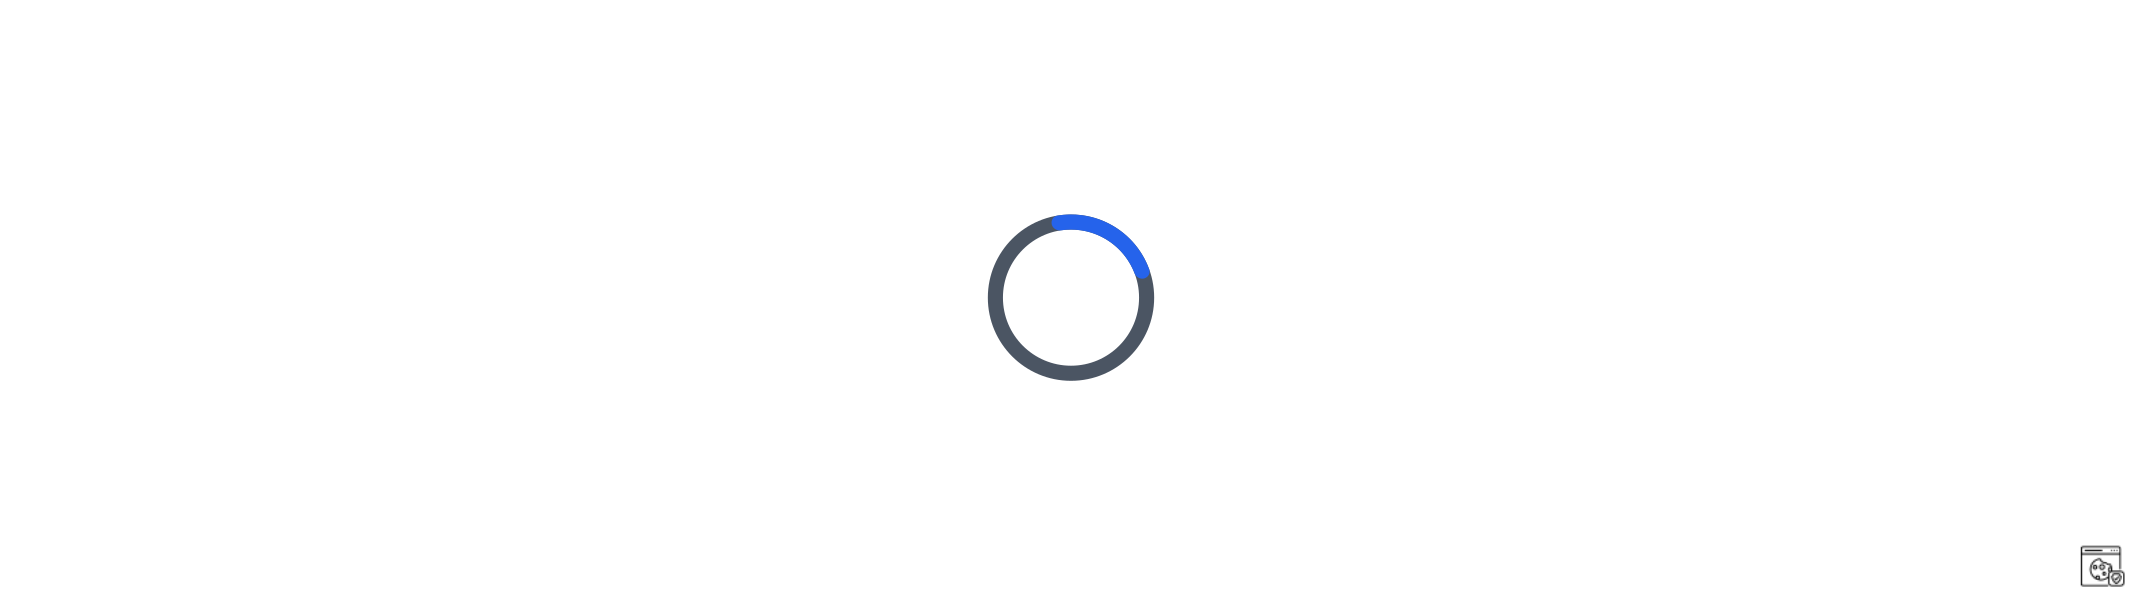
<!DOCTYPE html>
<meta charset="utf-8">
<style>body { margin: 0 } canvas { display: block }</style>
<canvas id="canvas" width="2142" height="595"></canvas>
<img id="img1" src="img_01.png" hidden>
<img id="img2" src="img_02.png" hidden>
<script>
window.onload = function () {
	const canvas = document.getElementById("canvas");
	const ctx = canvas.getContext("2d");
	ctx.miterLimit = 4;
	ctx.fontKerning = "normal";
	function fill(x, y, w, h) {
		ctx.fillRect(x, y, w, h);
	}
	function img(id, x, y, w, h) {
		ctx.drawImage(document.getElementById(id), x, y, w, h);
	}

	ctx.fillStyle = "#FFFFFF";
	fill(0, 0, 2142, 595);
	img("img1", 987, 214, 168, 167);
	img("img2", 2080, 545, 45, 42);
};
</script>
